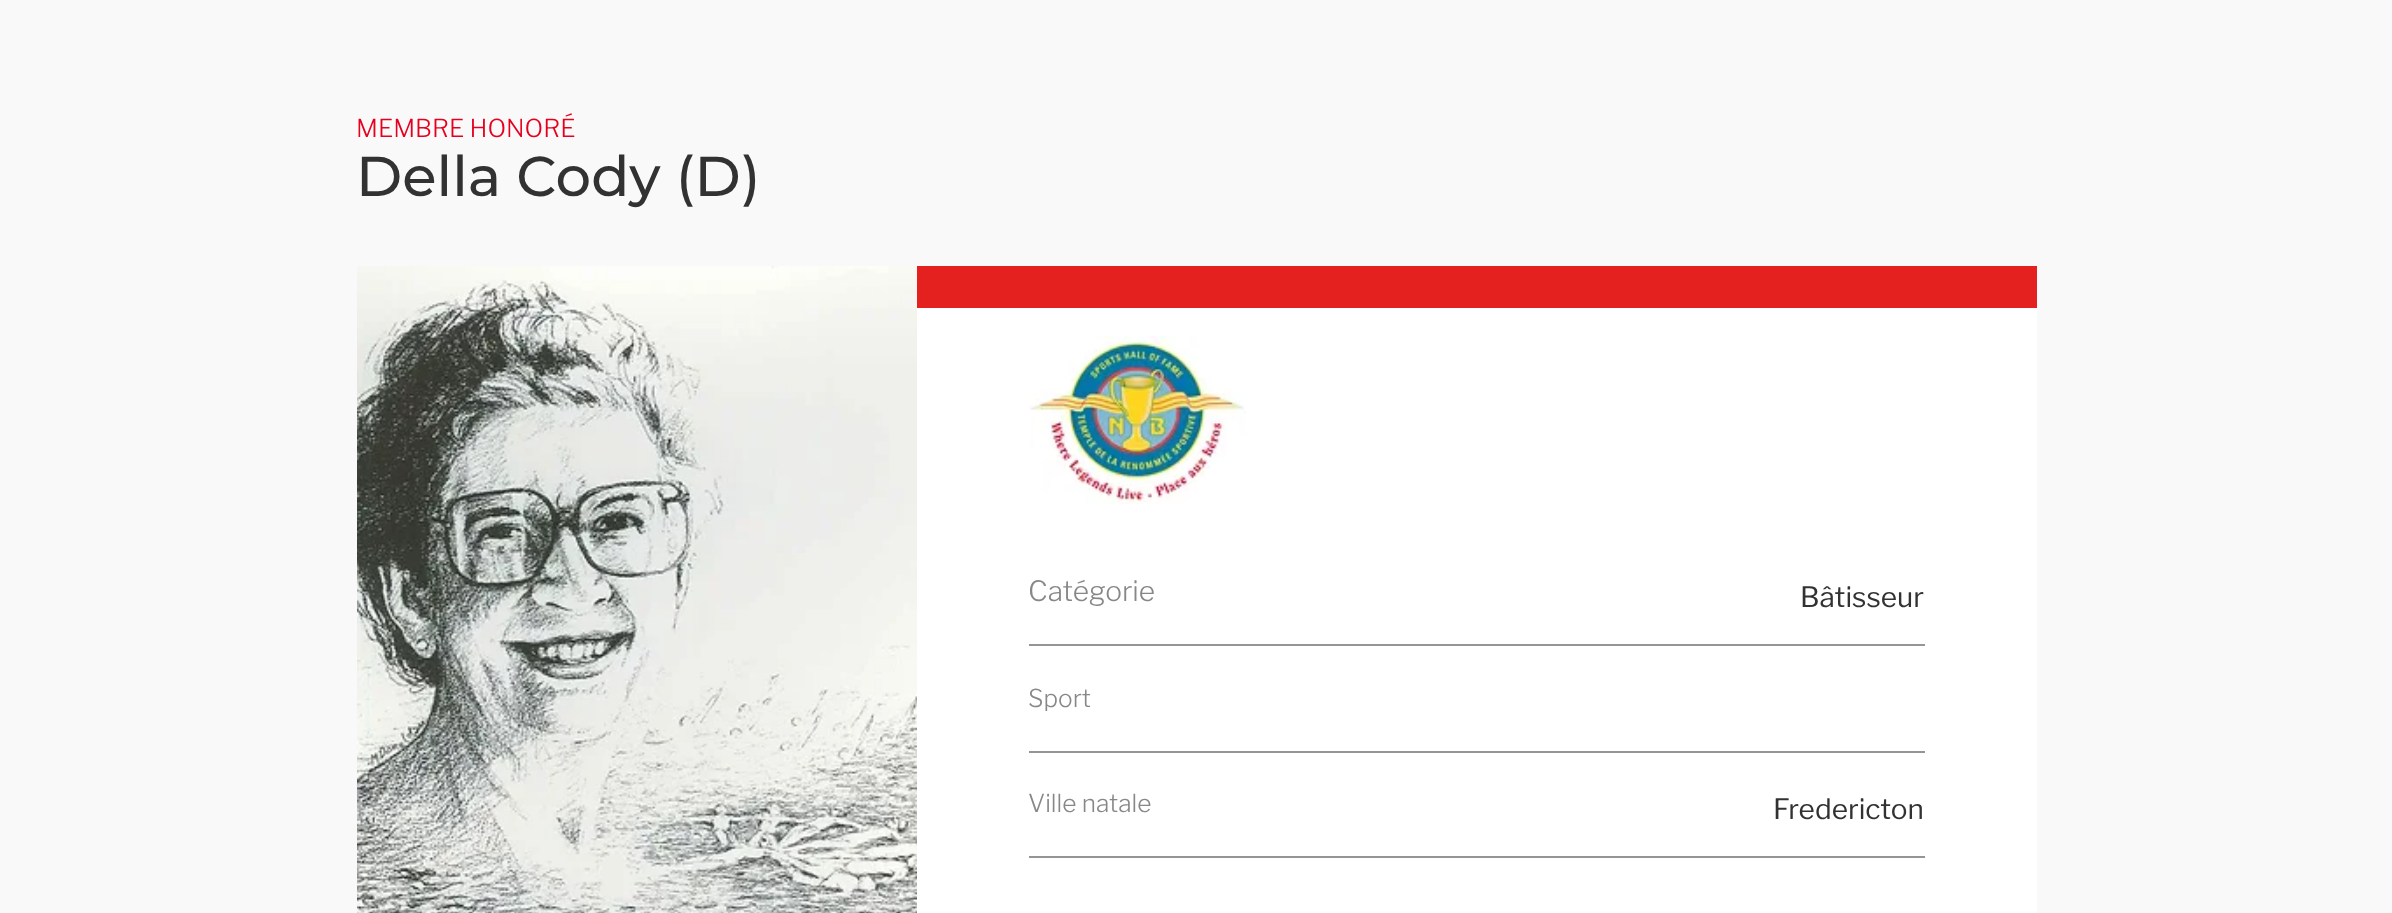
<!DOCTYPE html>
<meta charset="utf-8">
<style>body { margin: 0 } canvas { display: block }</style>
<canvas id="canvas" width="2392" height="913"></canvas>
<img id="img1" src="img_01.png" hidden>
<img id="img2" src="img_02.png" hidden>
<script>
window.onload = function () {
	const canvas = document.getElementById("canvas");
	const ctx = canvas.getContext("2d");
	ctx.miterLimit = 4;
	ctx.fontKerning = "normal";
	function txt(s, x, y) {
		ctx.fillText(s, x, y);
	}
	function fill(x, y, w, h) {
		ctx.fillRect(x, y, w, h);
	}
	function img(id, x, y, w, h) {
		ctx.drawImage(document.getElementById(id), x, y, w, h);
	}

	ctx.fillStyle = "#F9F9F9";
	fill(0, 0, 2392, 913);
	img("img1", 357, 266, 560, 647);
	ctx.fillStyle = "#E5211F";
	fill(917, 266, 1120, 42);
	ctx.fillStyle = "#FFFFFF";
	fill(917, 308, 1120, 605);
	img("img2", 1029, 336, 217, 168);
	ctx.fillStyle = "#959595";
	fill(1029, 644, 896, 2);
	fill(1029, 751, 896, 2);
	fill(1029, 856, 896, 2);
	ctx.font = "300 24.5px Libre Franklin";
	ctx.fillStyle = "#E50020";
	txt("MEMBRE HONORÉ", 356, 137);
	ctx.font = "500 56px Montserrat";
	ctx.fillStyle = "#323232";
	txt("Della Cody (D)", 356, 196);
	ctx.font = "300 28px Libre Franklin";
	ctx.fillStyle = "#878787";
	txt("Catégorie", 1028, 601);
	ctx.font = "28px Libre Franklin";
	ctx.fillStyle = "#323232";
	txt("Bâtisseur", 1800, 607);
	ctx.font = "300 24.5px Libre Franklin";
	ctx.fillStyle = "#878787";
	txt("Sport", 1028, 707);
	txt("Ville natale", 1028, 812);
	ctx.font = "28px Libre Franklin";
	ctx.fillStyle = "#323232";
	txt("Fredericton", 1773, 819);
};
</script>
